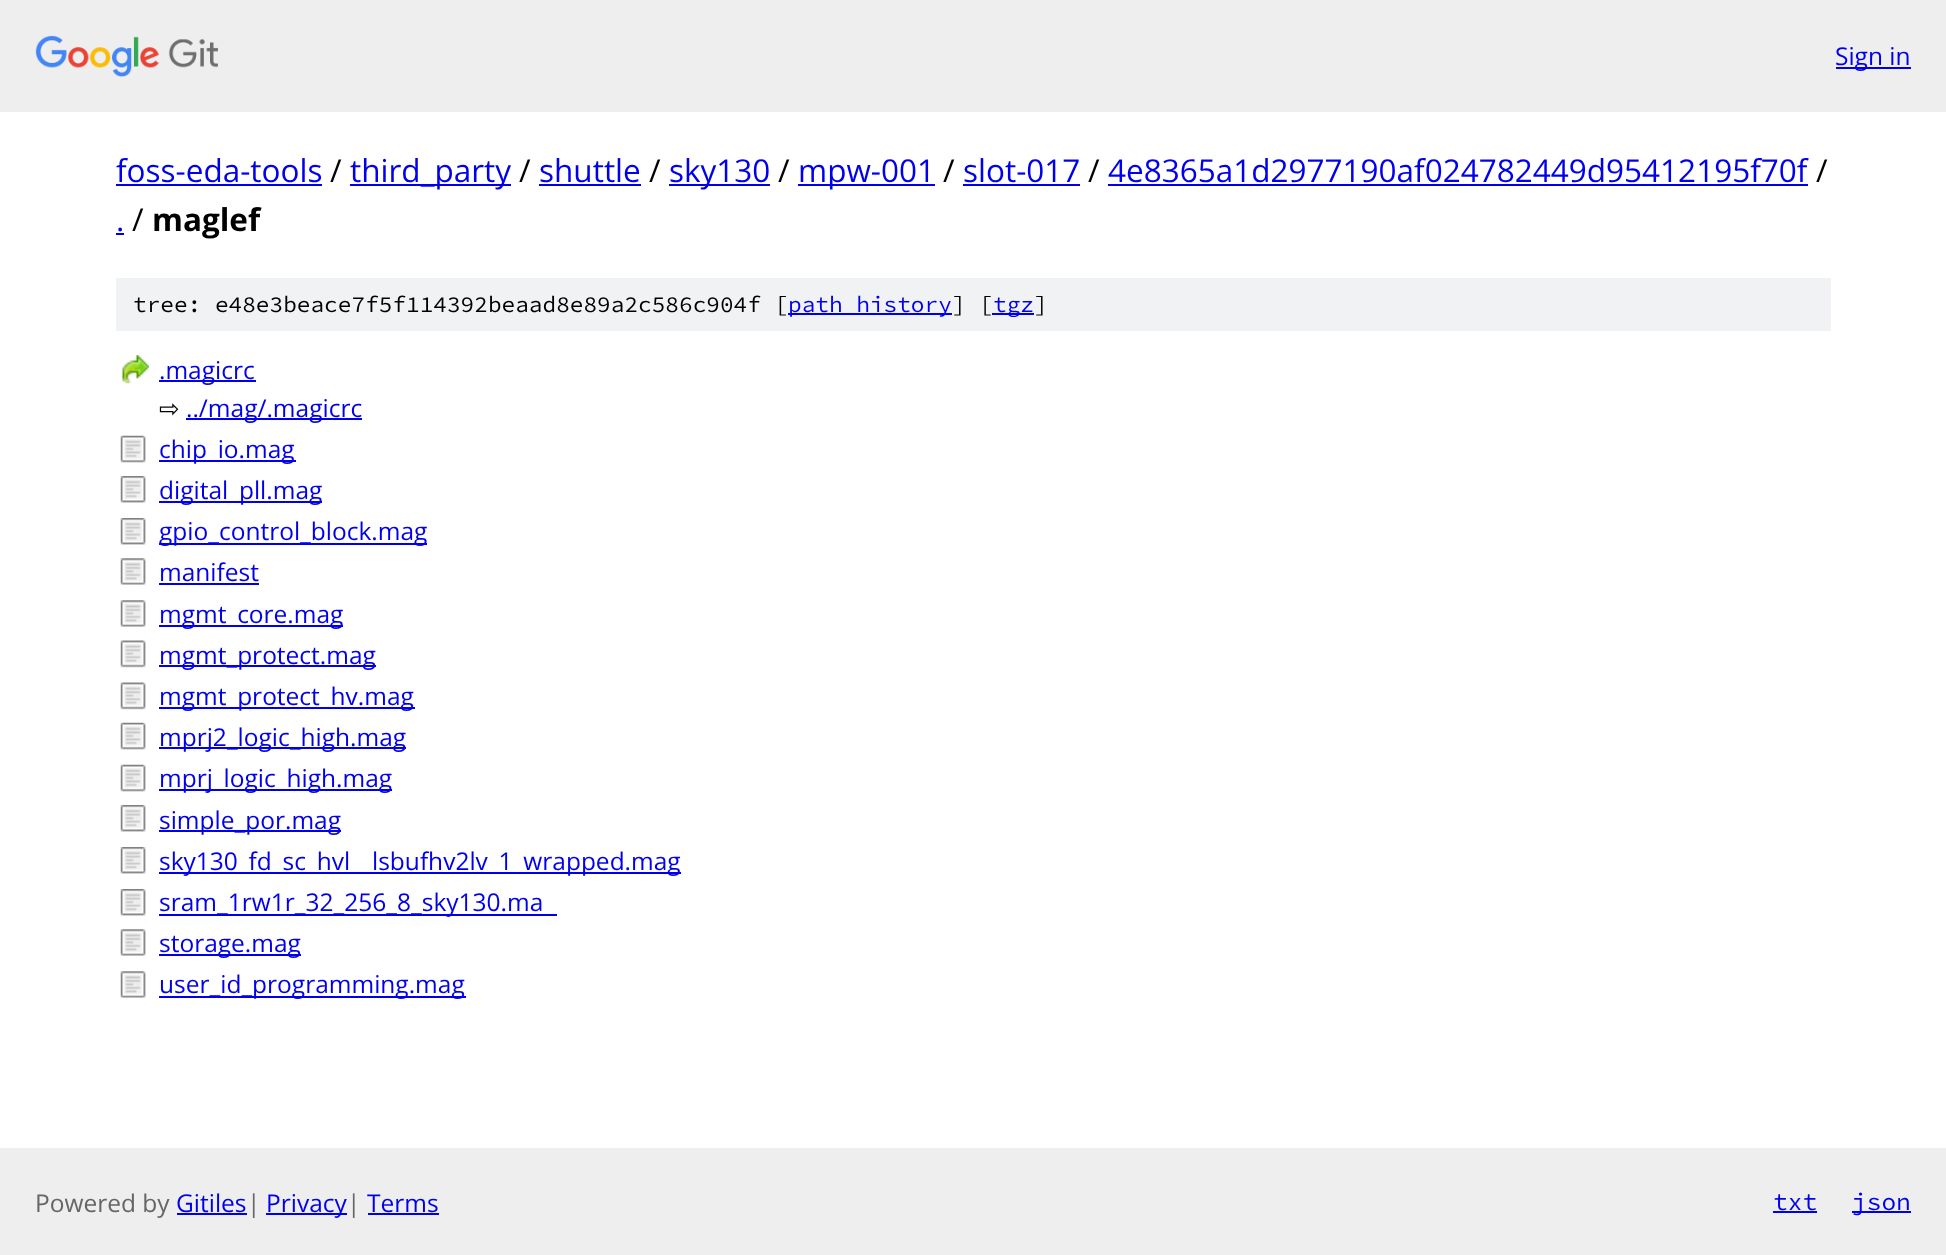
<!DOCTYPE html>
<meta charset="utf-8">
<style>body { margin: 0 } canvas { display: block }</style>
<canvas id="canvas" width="1946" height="1255"></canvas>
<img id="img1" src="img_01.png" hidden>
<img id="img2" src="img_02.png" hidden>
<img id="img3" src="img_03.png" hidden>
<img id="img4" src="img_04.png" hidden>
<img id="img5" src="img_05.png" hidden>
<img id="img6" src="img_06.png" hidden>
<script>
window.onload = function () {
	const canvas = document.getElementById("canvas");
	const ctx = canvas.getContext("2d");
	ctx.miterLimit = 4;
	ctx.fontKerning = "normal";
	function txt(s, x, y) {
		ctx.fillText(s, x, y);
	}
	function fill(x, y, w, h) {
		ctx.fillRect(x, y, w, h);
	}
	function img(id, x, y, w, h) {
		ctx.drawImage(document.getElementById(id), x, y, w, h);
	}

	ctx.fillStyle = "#FFFFFF";
	fill(0, 0, 1946, 1255);
	ctx.fillStyle = "#EEEEEE";
	fill(0, 0, 1946, 112);
	img("img1", 35, 35, 183, 42);
	ctx.fillStyle = "#0000EE";
	fill(1836, 67, 75, 2);
	fill(116, 184, 206, 2);
	fill(350, 184, 161, 2);
	fill(539, 184, 102, 2);
	fill(669, 184, 101, 2);
	fill(798, 184, 137, 2);
	fill(963, 184, 117, 2);
	fill(1108, 184, 700, 2);
	fill(116, 233, 8, 2);
	ctx.fillStyle = "#F1F2F3";
	fill(116, 278, 1715, 53);
	ctx.fillStyle = "#0000EE";
	fill(788, 313, 164, 2);
	fill(992, 313, 42, 2);
	img("img2", 122, 355, 27, 29);
	fill(159, 380, 97, 2);
	fill(186, 418, 176, 2);
	img("img3", 120, 435, 26, 28);
	fill(159, 460, 137, 2);
	img("img4", 120, 476, 26, 27);
	fill(159, 501, 163, 2);
	img("img4", 120, 518, 26, 27);
	fill(159, 543, 268, 2);
	img("img5", 120, 558, 26, 27);
	fill(159, 583, 100, 2);
	img("img5", 120, 600, 26, 27);
	fill(159, 625, 184, 2);
	img("img6", 120, 640, 26, 28);
	fill(159, 665, 217, 2);
	img("img6", 120, 682, 26, 28);
	fill(159, 707, 256, 2);
	img("img3", 120, 722, 26, 28);
	fill(159, 747, 247, 2);
	img("img3", 120, 764, 26, 28);
	fill(159, 789, 233, 2);
	img("img4", 120, 805, 26, 27);
	fill(159, 830, 182, 2);
	img("img4", 120, 847, 26, 27);
	fill(159, 872, 522, 2);
	img("img4", 120, 889, 26, 27);
	fill(159, 914, 398, 2);
	img("img5", 120, 929, 26, 27);
	fill(159, 954, 142, 2);
	img("img5", 120, 971, 26, 27);
	fill(159, 996, 307, 2);
	ctx.fillStyle = "#EEEEEE";
	fill(0, 1148, 1946, 107);
	ctx.fillStyle = "#0000EE";
	fill(177, 1213, 70, 2);
	fill(266, 1213, 81, 2);
	fill(368, 1213, 71, 2);
	fill(1773, 1211, 44, 2);
	fill(1852, 1211, 59, 2);
	ctx.font = "24.5px Open Sans";
	txt("Sign in", 1835, 65);
	ctx.font = "31.5px Open Sans";
	txt("foss-eda-tools", 116, 182);
	ctx.fillStyle = "#000000";
	txt("/", 330, 182);
	ctx.fillStyle = "#0000EE";
	txt("third_party", 350, 182);
	ctx.fillStyle = "#000000";
	txt("/", 519, 182);
	ctx.fillStyle = "#0000EE";
	txt("shuttle", 539, 182);
	ctx.fillStyle = "#000000";
	txt("/", 649, 182);
	ctx.fillStyle = "#0000EE";
	txt("sky130", 669, 182);
	ctx.fillStyle = "#000000";
	txt("/", 778, 182);
	ctx.fillStyle = "#0000EE";
	txt("mpw-001", 798, 182);
	ctx.fillStyle = "#000000";
	txt("/", 943, 182);
	ctx.fillStyle = "#0000EE";
	txt("slot-017", 963, 182);
	ctx.fillStyle = "#000000";
	txt("/", 1088, 182);
	ctx.fillStyle = "#0000EE";
	txt("4e8365a1d2977190af024782449d95412195f70f", 1108, 182);
	ctx.fillStyle = "#000000";
	txt("/", 1816, 182);
	ctx.fillStyle = "#0000EE";
	txt(".", 116, 231);
	ctx.fillStyle = "#000000";
	txt("/", 132, 231);
	ctx.font = "bold 31.5px Open Sans";
	txt("maglef", 152, 231);
	ctx.font = "200 22.75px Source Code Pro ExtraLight";
	txt("tree: e48e3beace7f5f114392beaad8e89a2c586c904f [", 133, 312);
	ctx.fillStyle = "#0000EE";
	txt("path history", 788, 312);
	ctx.fillStyle = "#000000";
	txt("] [", 952, 312);
	ctx.fillStyle = "#0000EE";
	txt("tgz", 993, 312);
	ctx.fillStyle = "#000000";
	txt("]", 1034, 312);
	ctx.font = "24.5px Open Sans";
	ctx.fillStyle = "#0000EE";
	txt(".magicrc", 159, 379);
	ctx.font = "24.5px DejaVu Sans";
	ctx.fillStyle = "#000000";
	txt("⇨", 159, 417);
	ctx.font = "24.5px Open Sans";
	ctx.fillStyle = "#0000EE";
	txt("../mag/.magicrc", 186, 417);
	txt("chip_io.mag", 159, 458);
	txt("digital_pll.mag", 159, 499);
	txt("gpio_control_block.mag", 159, 540);
	txt("manifest", 159, 581);
	txt("mgmt_core.mag", 159, 623);
	txt("mgmt_protect.mag", 159, 664);
	txt("mgmt_protect_hv.mag", 159, 705);
	txt("mprj2_logic_high.mag", 159, 746);
	txt("mprj_logic_high.mag", 159, 787);
	txt("simple_por.mag", 159, 829);
	txt("sky130_fd_sc_hvl", 159, 870);
	txt("lsbufhv2lv_1_wrapped.mag", 372, 870);
	txt("sram_1rw1r_32_256_8_sky130.ma", 159, 911);
	txt("storage.mag", 159, 952);
	txt("user_id_programming.mag", 159, 993);
	ctx.fillStyle = "#666666";
	txt("Powered by", 35, 1212);
	ctx.fillStyle = "#0000EE";
	txt("Gitiles", 176, 1212);
	ctx.fillStyle = "#666666";
	txt("|", 247, 1212);
	ctx.fillStyle = "#0000EE";
	txt("Privacy", 266, 1212);
	ctx.fillStyle = "#666666";
	txt("|", 347, 1212);
	ctx.fillStyle = "#0000EE";
	txt("Terms", 367, 1212);
	ctx.font = "200 24.5px Source Code Pro ExtraLight";
	txt("txt", 1773, 1210);
	txt("json", 1852, 1210);
};
</script>
